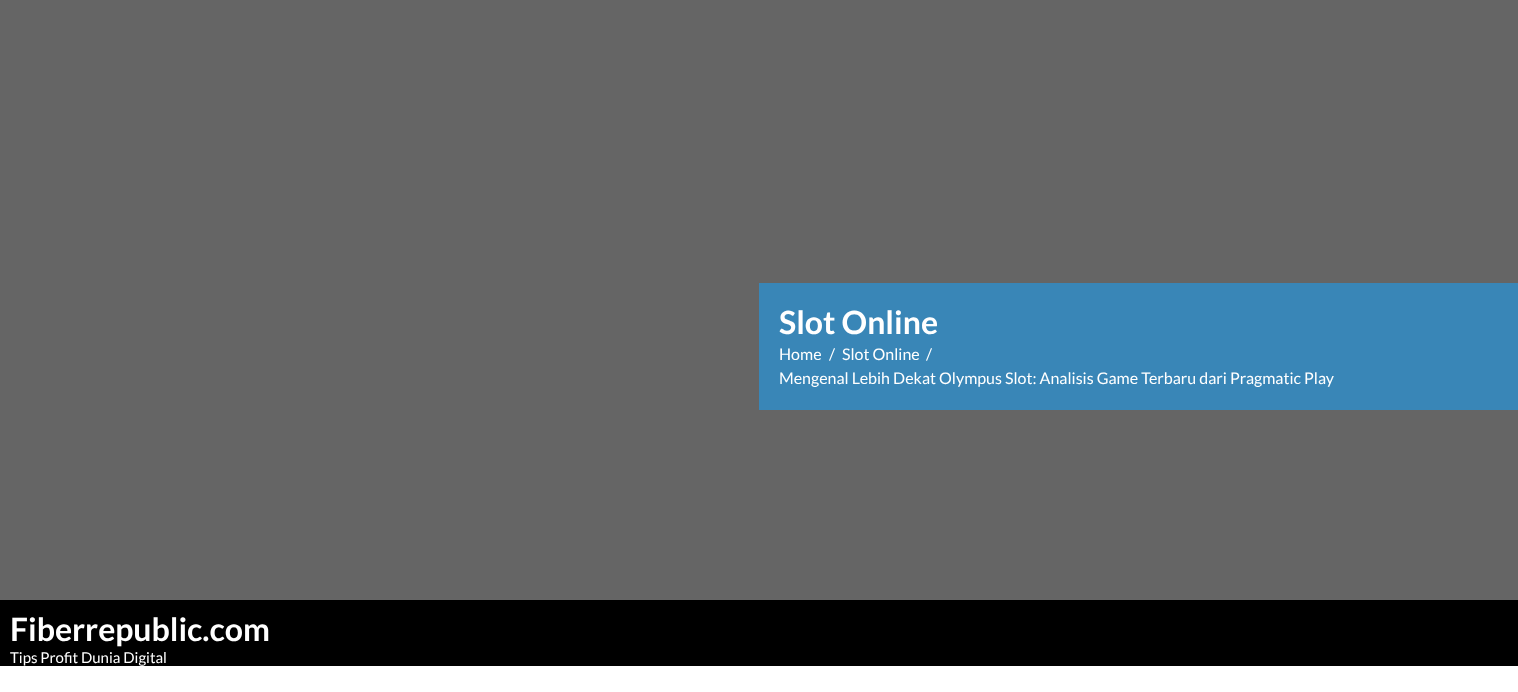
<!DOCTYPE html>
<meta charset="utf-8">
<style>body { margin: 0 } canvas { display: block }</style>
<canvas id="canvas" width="1518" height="692"></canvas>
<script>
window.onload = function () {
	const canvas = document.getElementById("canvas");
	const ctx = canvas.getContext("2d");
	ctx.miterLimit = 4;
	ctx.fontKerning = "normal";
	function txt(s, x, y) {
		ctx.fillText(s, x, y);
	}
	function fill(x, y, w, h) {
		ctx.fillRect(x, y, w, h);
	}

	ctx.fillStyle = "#FFFFFF";
	fill(0, 0, 1518, 692);
	ctx.fillStyle = "#656565";
	fill(0, 0, 1518, 600);
	ctx.fillStyle = "#3986B7";
	fill(759, 283, 759, 127);
	ctx.fillStyle = "#000000";
	fill(0, 600, 1518, 66);
	ctx.font = "bold 32px Lato";
	ctx.fillStyle = "#FFFFFF";
	txt("Slot Online", 779, 334);
	ctx.font = "16px Lato";
	txt("Home", 779, 360);
	txt("/", 829, 360);
	txt("Slot Online", 842, 360);
	txt("/", 926, 360);
	txt("Mengenal Lebih Dekat Olympus Slot: Analisis Game Terbaru dari Pragmatic Play", 779, 384);
	ctx.font = "bold 32px Lato";
	txt("Fiberrepublic.com", 10, 641);
	ctx.font = "15px Lato";
	txt("Tips Profit Dunia Digital", 10, 663);
};
</script>
